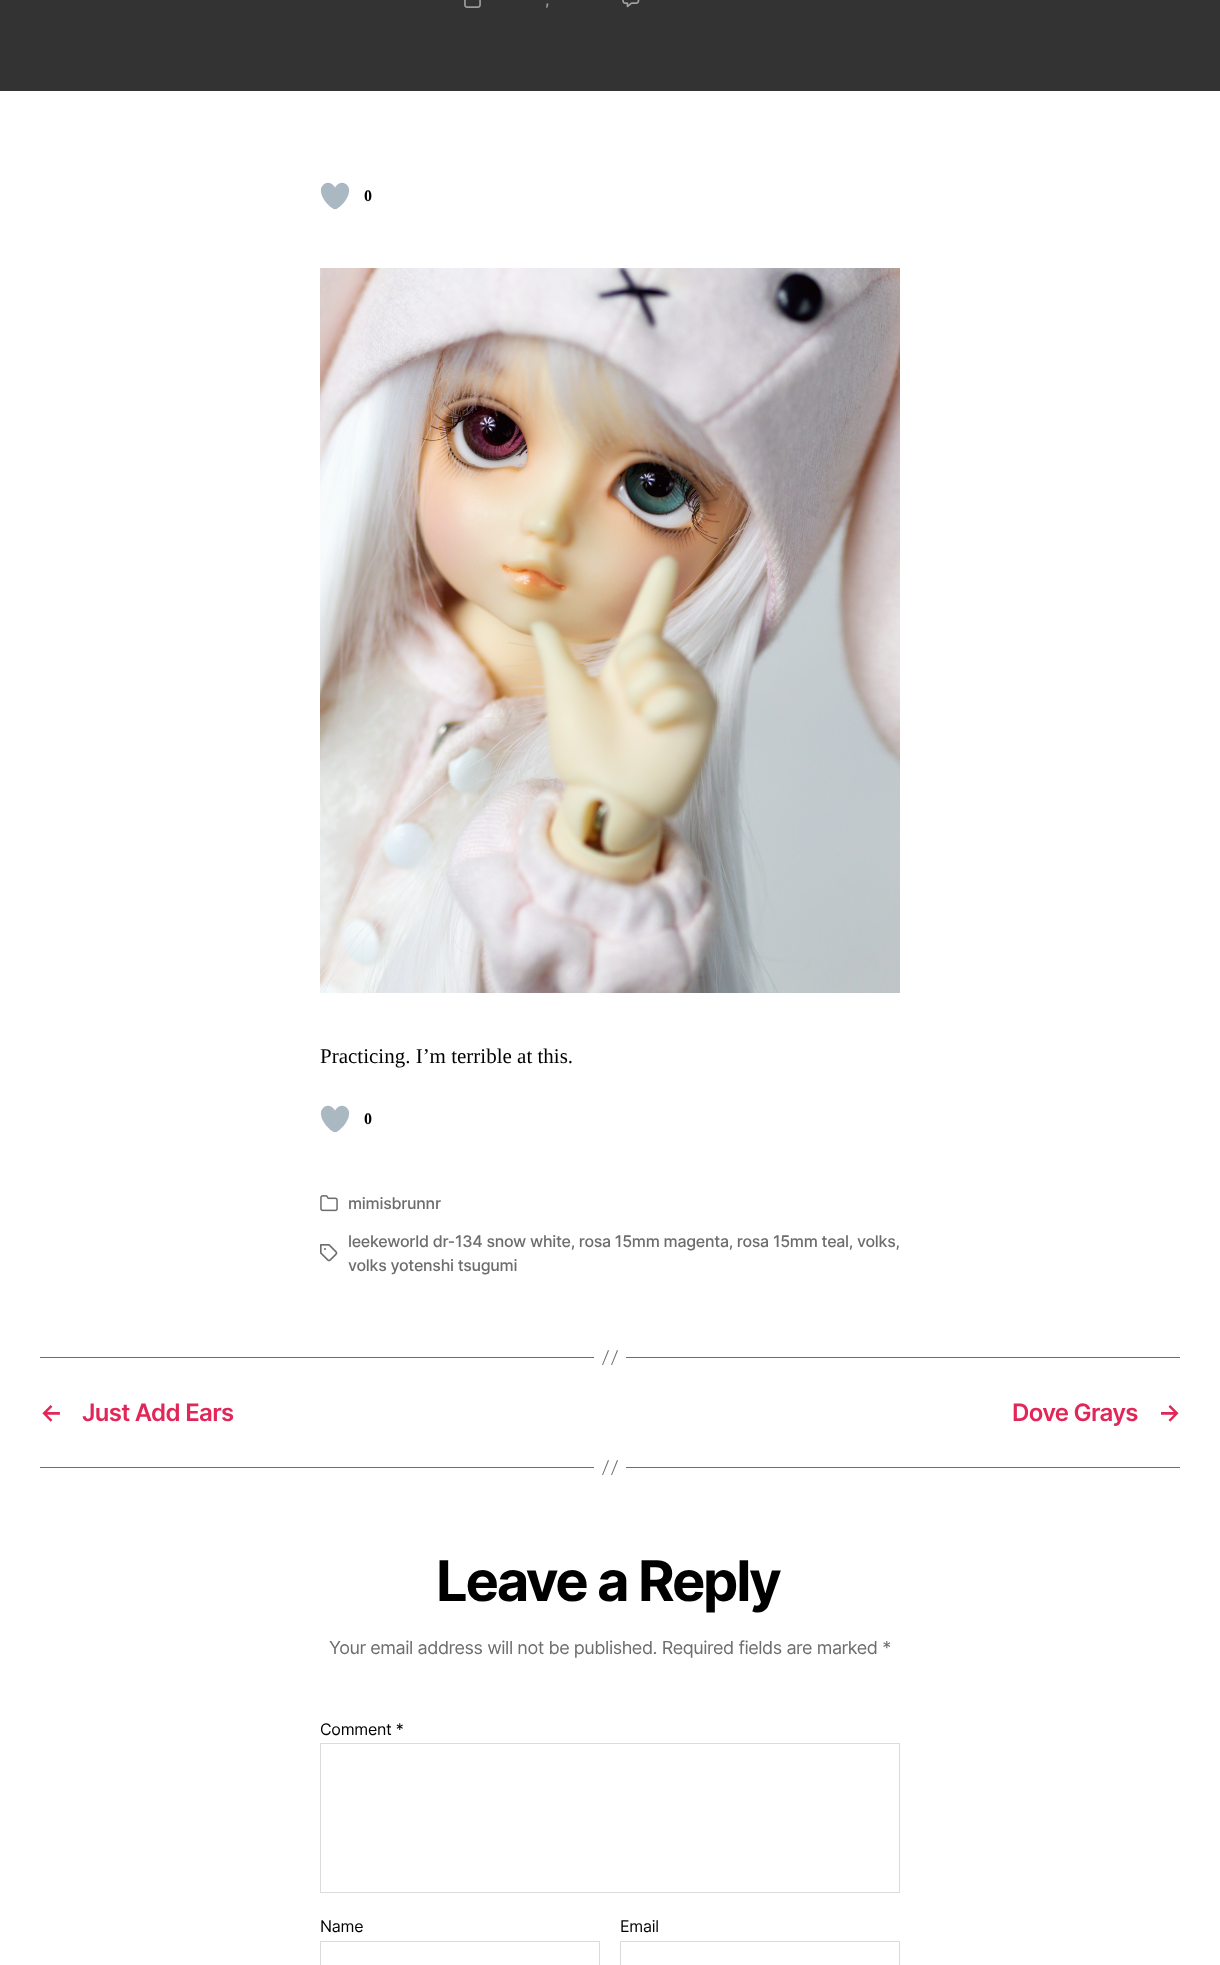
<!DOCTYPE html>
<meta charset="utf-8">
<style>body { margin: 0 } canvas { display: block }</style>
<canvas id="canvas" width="1220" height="1965"></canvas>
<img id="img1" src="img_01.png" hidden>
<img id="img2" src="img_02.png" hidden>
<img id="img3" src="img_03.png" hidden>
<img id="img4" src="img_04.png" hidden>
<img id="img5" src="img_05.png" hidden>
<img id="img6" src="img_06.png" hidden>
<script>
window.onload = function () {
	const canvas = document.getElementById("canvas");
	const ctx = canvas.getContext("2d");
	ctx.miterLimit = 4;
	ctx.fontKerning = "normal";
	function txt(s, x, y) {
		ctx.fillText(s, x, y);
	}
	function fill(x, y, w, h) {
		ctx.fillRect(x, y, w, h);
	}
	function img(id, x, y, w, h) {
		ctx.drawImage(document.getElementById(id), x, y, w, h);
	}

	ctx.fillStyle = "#FFFFFF";
	fill(0, 0, 1220, 1965);
	ctx.fillStyle = "#333333";
	fill(0, 0, 1220, 91);
	img("img1", 464, 0, 17, 8);
	img("img2", 622, 0, 18, 8);
	img("img3", 320, 182, 30, 28);
	img("img4", 320, 268, 580, 725);
	img("img3", 320, 1105, 30, 28);
	img("img5", 320, 1195, 18, 17);
	img("img6", 320, 1244, 18, 18);
	ctx.fillStyle = "#6D6D6D";
	fill(626, 1357, 554, 1);
	fill(40, 1357, 554, 1);
	ctx.beginPath();
	ctx.moveTo(608, 1350);
	ctx.lineTo(609, 1350.5);
	ctx.lineTo(603, 1365);
	ctx.lineTo(602, 1365);
	ctx.closePath();
	ctx.moveTo(617, 1350);
	ctx.lineTo(618, 1350.5);
	ctx.lineTo(612, 1365);
	ctx.lineTo(611, 1365);
	ctx.closePath();
	ctx.fill();
	fill(626, 1467, 554, 1);
	fill(40, 1467, 554, 1);
	ctx.beginPath();
	ctx.moveTo(608, 1460);
	ctx.lineTo(609, 1460.5);
	ctx.lineTo(603, 1475);
	ctx.lineTo(602, 1475);
	ctx.closePath();
	ctx.moveTo(617, 1460);
	ctx.lineTo(618, 1460.5);
	ctx.lineTo(612, 1475);
	ctx.lineTo(611, 1475);
	ctx.closePath();
	ctx.fill();
	ctx.strokeStyle = "#DBDBDB";
	ctx.strokeRect(320.5, 1743.5, 579, 149);
	ctx.strokeRect(320.5, 1941.5, 279, 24);
	ctx.strokeRect(620.5, 1941.5, 279, 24);
	ctx.letterSpacing = "-0.27px";
	ctx.font = "500 16px Inter";
	ctx.fillStyle = "#A3A3A3";
	txt(",", 545, 5);
	ctx.letterSpacing = "0px";
	ctx.font = "bold 16px Liberation Serif";
	ctx.fillStyle = "#000000";
	txt("0", 364, 201);
	ctx.font = "21px Liberation Serif";
	txt("Practicing. I’m terrible at this.", 320, 1063);
	ctx.font = "bold 16px Liberation Serif";
	txt("0", 364, 1124);
	ctx.letterSpacing = "-0.27px";
	ctx.font = "500 16px Inter";
	ctx.fillStyle = "#6D6D6D";
	txt("mimisbrunnr", 348, 1209);
	txt("leekeworld dr-134 snow white, rosa 15mm magenta, rosa 15mm teal, volks,", 348, 1247);
	txt("volks yotenshi tsugumi", 348, 1271);
	ctx.letterSpacing = "-0.7px";
	ctx.font = "600 24px Inter";
	ctx.fillStyle = "#E22658";
	txt("←", 40, 1421);
	txt("Just Add Ears", 82, 1421);
	txt("Dove Grays", 1012, 1421);
	txt("→", 1158, 1421);
	ctx.letterSpacing = "-2.3px";
	ctx.font = "bold 56px Inter";
	ctx.fillStyle = "#000000";
	txt("Leave a Reply", 436, 1601);
	ctx.letterSpacing = "-0.45px";
	ctx.font = "18px Inter";
	ctx.fillStyle = "#6D6D6D";
	txt("Your email address will not be published. Required fields are marked *", 329, 1654);
	ctx.letterSpacing = "-0.27px";
	ctx.font = "16px Inter";
	ctx.fillStyle = "#000000";
	txt("Comment *", 320, 1735);
	txt("Name", 320, 1932);
	txt("Email", 620, 1932);
};
</script>
